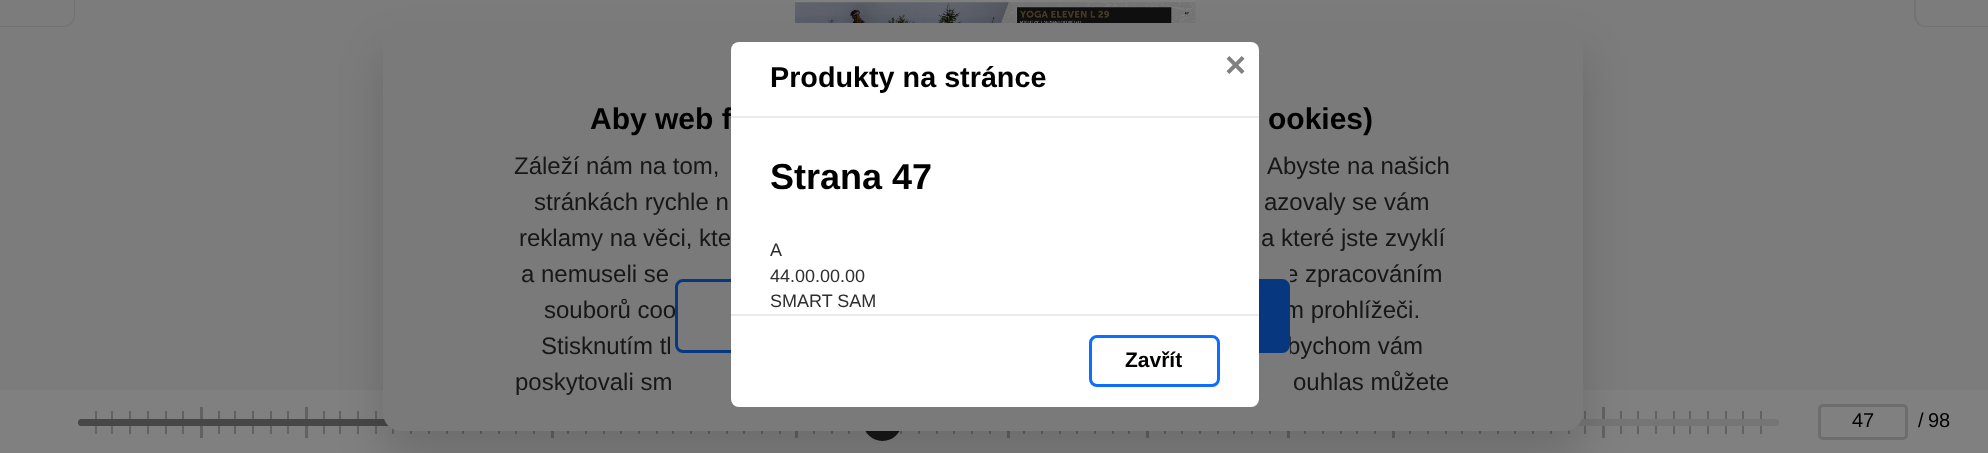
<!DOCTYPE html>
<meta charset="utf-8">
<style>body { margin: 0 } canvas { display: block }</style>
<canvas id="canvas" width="1988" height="453"></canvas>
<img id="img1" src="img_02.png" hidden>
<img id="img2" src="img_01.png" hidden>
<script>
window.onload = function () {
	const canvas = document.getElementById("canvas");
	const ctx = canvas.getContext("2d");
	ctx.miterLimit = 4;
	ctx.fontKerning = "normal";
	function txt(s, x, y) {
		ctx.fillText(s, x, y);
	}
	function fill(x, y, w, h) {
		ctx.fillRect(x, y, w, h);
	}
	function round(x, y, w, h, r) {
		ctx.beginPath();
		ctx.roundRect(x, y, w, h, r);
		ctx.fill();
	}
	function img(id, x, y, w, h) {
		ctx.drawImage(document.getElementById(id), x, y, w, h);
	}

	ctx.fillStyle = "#7C7C7C";
	fill(0, 0, 1988, 453);
	ctx.fillStyle = "rgba(0, 0, 0, 0.08)";
	ctx.beginPath();
	ctx.moveTo(0, -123);
	ctx.lineTo(63, -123);
	ctx.bezierCurveTo(70, -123, 75, -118, 75, -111);
	ctx.lineTo(75, 15);
	ctx.bezierCurveTo(75, 22, 70, 27, 63, 27);
	ctx.lineTo(0, 27);
	ctx.closePath();
	ctx.moveTo(0, -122);
	ctx.lineTo(63, -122);
	ctx.bezierCurveTo(69, -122, 74, -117, 74, -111);
	ctx.lineTo(74, 15);
	ctx.bezierCurveTo(74, 21, 69, 26, 63, 26);
	ctx.lineTo(0, 26);
	ctx.closePath();
	ctx.fill("evenodd");
	img("img1", 1195, 3, 1, 20);
	img("img2", 795, 0, 401, 23);
	ctx.beginPath();
	ctx.moveTo(1926, -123);
	ctx.lineTo(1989, -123);
	ctx.lineTo(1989, 27);
	ctx.lineTo(1926, 27);
	ctx.bezierCurveTo(1919, 27, 1914, 22, 1914, 15);
	ctx.lineTo(1914, -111);
	ctx.bezierCurveTo(1914, -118, 1919, -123, 1926, -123);
	ctx.closePath();
	ctx.moveTo(1926, -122);
	ctx.lineTo(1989, -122);
	ctx.lineTo(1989, 26);
	ctx.lineTo(1926, 26);
	ctx.bezierCurveTo(1920, 26, 1916, 21, 1916, 15);
	ctx.lineTo(1916, -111);
	ctx.bezierCurveTo(1916, -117, 1920, -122, 1926, -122);
	ctx.closePath();
	ctx.fill("evenodd");
	ctx.fillStyle = "#808080";
	fill(0, 390, 1988, 63);
	ctx.fillStyle = "#626262";
	fill(95, 411, 2, 23);
	fill(111, 411, 2, 23);
	fill(129, 411, 2, 23);
	fill(147, 411, 2, 23);
	fill(165, 411, 2, 23);
	fill(182, 411, 2, 23);
	fill(200, 407, 3, 31);
	fill(218, 411, 2, 23);
	fill(234, 411, 2, 23);
	fill(252, 411, 2, 23);
	fill(270, 411, 2, 23);
	fill(287, 411, 2, 23);
	fill(305, 407, 3, 31);
	fill(323, 411, 2, 23);
	fill(339, 411, 2, 23);
	fill(357, 411, 2, 23);
	fill(375, 411, 2, 23);
	fill(1584, 411, 2, 23);
	fill(1602, 407, 3, 31);
	fill(1620, 411, 2, 23);
	fill(1637, 411, 2, 23);
	fill(1655, 411, 2, 23);
	fill(1673, 411, 2, 23);
	fill(1689, 411, 2, 23);
	fill(1707, 411, 2, 23);
	fill(1725, 411, 2, 23);
	fill(1742, 411, 2, 23);
	fill(1760, 411, 2, 23);
	ctx.fillStyle = "#757575";
	round(78, 419, 1701, 7, 3.5);
	ctx.fillStyle = "#474747";
	ctx.beginPath();
	ctx.roundRect(78, 419, 807, 7, [3.5, 0, 0, 3.5]);
	ctx.fill();
	ctx.fillStyle = "#626262";
	fill(866, 431, 2, 3);
	fill(900, 431, 2, 3);
	ctx.fillStyle = "#171717";
	ctx.beginPath();
	ctx.arc(882.5, 421.5, 19.5, 0, Math.PI * 2);
	ctx.fill();
	ctx.fillStyle = "#626262";
	fill(392, 428, 2, 6);
	fill(410, 431, 2, 3);
	fill(428, 431, 2, 3);
	fill(446, 431, 2, 3);
	fill(462, 431, 2, 3);
	fill(480, 431, 2, 3);
	fill(498, 431, 2, 3);
	fill(515, 431, 2, 3);
	fill(533, 431, 2, 3);
	fill(551, 431, 3, 7);
	fill(567, 431, 2, 3);
	fill(585, 431, 2, 3);
	fill(603, 431, 2, 3);
	fill(620, 431, 2, 3);
	fill(638, 431, 2, 3);
	fill(656, 431, 2, 3);
	fill(672, 431, 2, 3);
	fill(690, 431, 2, 3);
	fill(708, 431, 2, 3);
	fill(726, 431, 2, 3);
	fill(743, 431, 2, 3);
	fill(761, 431, 2, 3);
	fill(779, 431, 2, 3);
	fill(795, 431, 3, 7);
	fill(813, 431, 2, 3);
	fill(831, 431, 2, 3);
	fill(848, 431, 2, 3);
	fill(918, 431, 2, 3);
	fill(936, 431, 2, 3);
	fill(953, 431, 2, 3);
	fill(971, 431, 2, 3);
	fill(989, 431, 2, 3);
	fill(1007, 431, 3, 7);
	fill(1023, 431, 2, 3);
	fill(1041, 431, 2, 3);
	fill(1059, 431, 2, 3);
	fill(1076, 431, 2, 3);
	fill(1094, 431, 2, 3);
	fill(1112, 431, 2, 3);
	fill(1128, 431, 2, 3);
	fill(1146, 431, 3, 7);
	fill(1164, 431, 2, 3);
	fill(1181, 431, 2, 3);
	fill(1199, 431, 2, 3);
	fill(1217, 431, 2, 3);
	fill(1233, 431, 2, 3);
	fill(1251, 431, 2, 3);
	fill(1269, 431, 2, 3);
	fill(1287, 431, 3, 7);
	fill(1304, 431, 2, 3);
	fill(1322, 431, 2, 3);
	fill(1340, 431, 2, 3);
	fill(1356, 431, 2, 3);
	fill(1374, 431, 2, 3);
	fill(1392, 431, 3, 7);
	fill(1409, 431, 2, 3);
	fill(1427, 431, 2, 3);
	fill(1445, 431, 2, 3);
	fill(1461, 431, 2, 3);
	fill(1479, 431, 2, 3);
	fill(1497, 431, 2, 3);
	fill(1514, 431, 2, 3);
	fill(1532, 431, 2, 3);
	fill(1550, 431, 2, 3);
	fill(1568, 430, 2, 4);
	ctx.fillStyle = "rgba(0, 0, 0, 0.15)";
	ctx.filter = "blur(22.5px)";
	ctx.beginPath();
	ctx.roundRect(383, 50, 1200, 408, 18);
	ctx.fill();
	ctx.filter = "none";
	ctx.fillStyle = "#7A7A7A";
	round(383, 23, 1200, 408, 18);
	ctx.beginPath();
	ctx.roundRect(1819.5, 405.5, 87, 33, 3.5);
	ctx.strokeStyle = "#6D6D6D";
	ctx.lineWidth = 3;
	ctx.stroke();
	ctx.font = "bold 30px Liberation Sans";
	ctx.fillStyle = "#000000";
	txt("Aby web f", 590, 129);
	txt("ookies)", 1268, 129);
	ctx.font = "24px Liberation Sans";
	ctx.fillStyle = "#171717";
	txt("Záleží nám na tom,", 514, 174);
	txt("Abyste na našich", 1267, 174);
	txt("stránkách rychle n", 534, 210);
	txt("azovaly se vám", 1264, 210);
	txt("reklamy na věci, kte", 519, 246);
	txt("a které jste zvyklí", 1261, 246);
	txt("a nemuseli se", 521, 282);
	txt("e zpracováním", 1285, 282);
	txt("souborů coo", 544, 318);
	txt("m prohlížeči.", 1284, 318);
	txt("Stisknutím tl", 541, 354);
	txt("bychom vám", 1287, 354);
	txt("poskytovali sm", 515, 390);
	txt("ouhlas můžete", 1293, 390);
	ctx.fillStyle = "#7A7A7A";
	fill(688, 249, 602, 105);
	ctx.beginPath();
	ctx.roundRect(676.5, 280.5, 333, 71, 6.5);
	ctx.strokeStyle = "#07377F";
	ctx.stroke();
	ctx.fillStyle = "#07377F";
	ctx.beginPath();
	ctx.roundRect(1026.5, 280.5, 262, 71, 6.5);
	ctx.fill();
	ctx.stroke();
	ctx.fillStyle = "#FFFFFF";
	round(731, 42, 528, 365, 8);
	ctx.font = "bold 36px Liberation Sans";
	ctx.fillStyle = "#808080";
	txt("×", 1225, 77);
	ctx.font = "18px Liberation Sans";
	ctx.fillStyle = "#2E2E2E";
	txt("SMART SAM", 770, 307);
	txt("44.00.00.00", 770, 282);
	txt("A", 770, 256);
	ctx.font = "bold 36px Liberation Sans";
	ctx.fillStyle = "#000000";
	txt("Strana 47", 770, 189);
	ctx.beginPath();
	ctx.roundRect(1090.5, 336.5, 128, 49, 6.5);
	ctx.strokeStyle = "#0D6EFD";
	ctx.stroke();
	ctx.font = "bold 21px Liberation Sans";
	txt("Zavřít", 1125, 367);
	ctx.fillStyle = "#E9ECEF";
	fill(731, 314, 528, 2);
	ctx.font = "bold 28.75px Liberation Sans";
	ctx.fillStyle = "#000000";
	txt("Produkty na stránce", 770, 87);
	ctx.fillStyle = "#E9ECEF";
	fill(731, 116, 528, 2);
	ctx.font = "20px Liberation Sans";
	ctx.fillStyle = "#000000";
	txt("47", 1852, 427);
	txt("/", 1918, 427);
	txt("98", 1928, 427);
};
</script>
